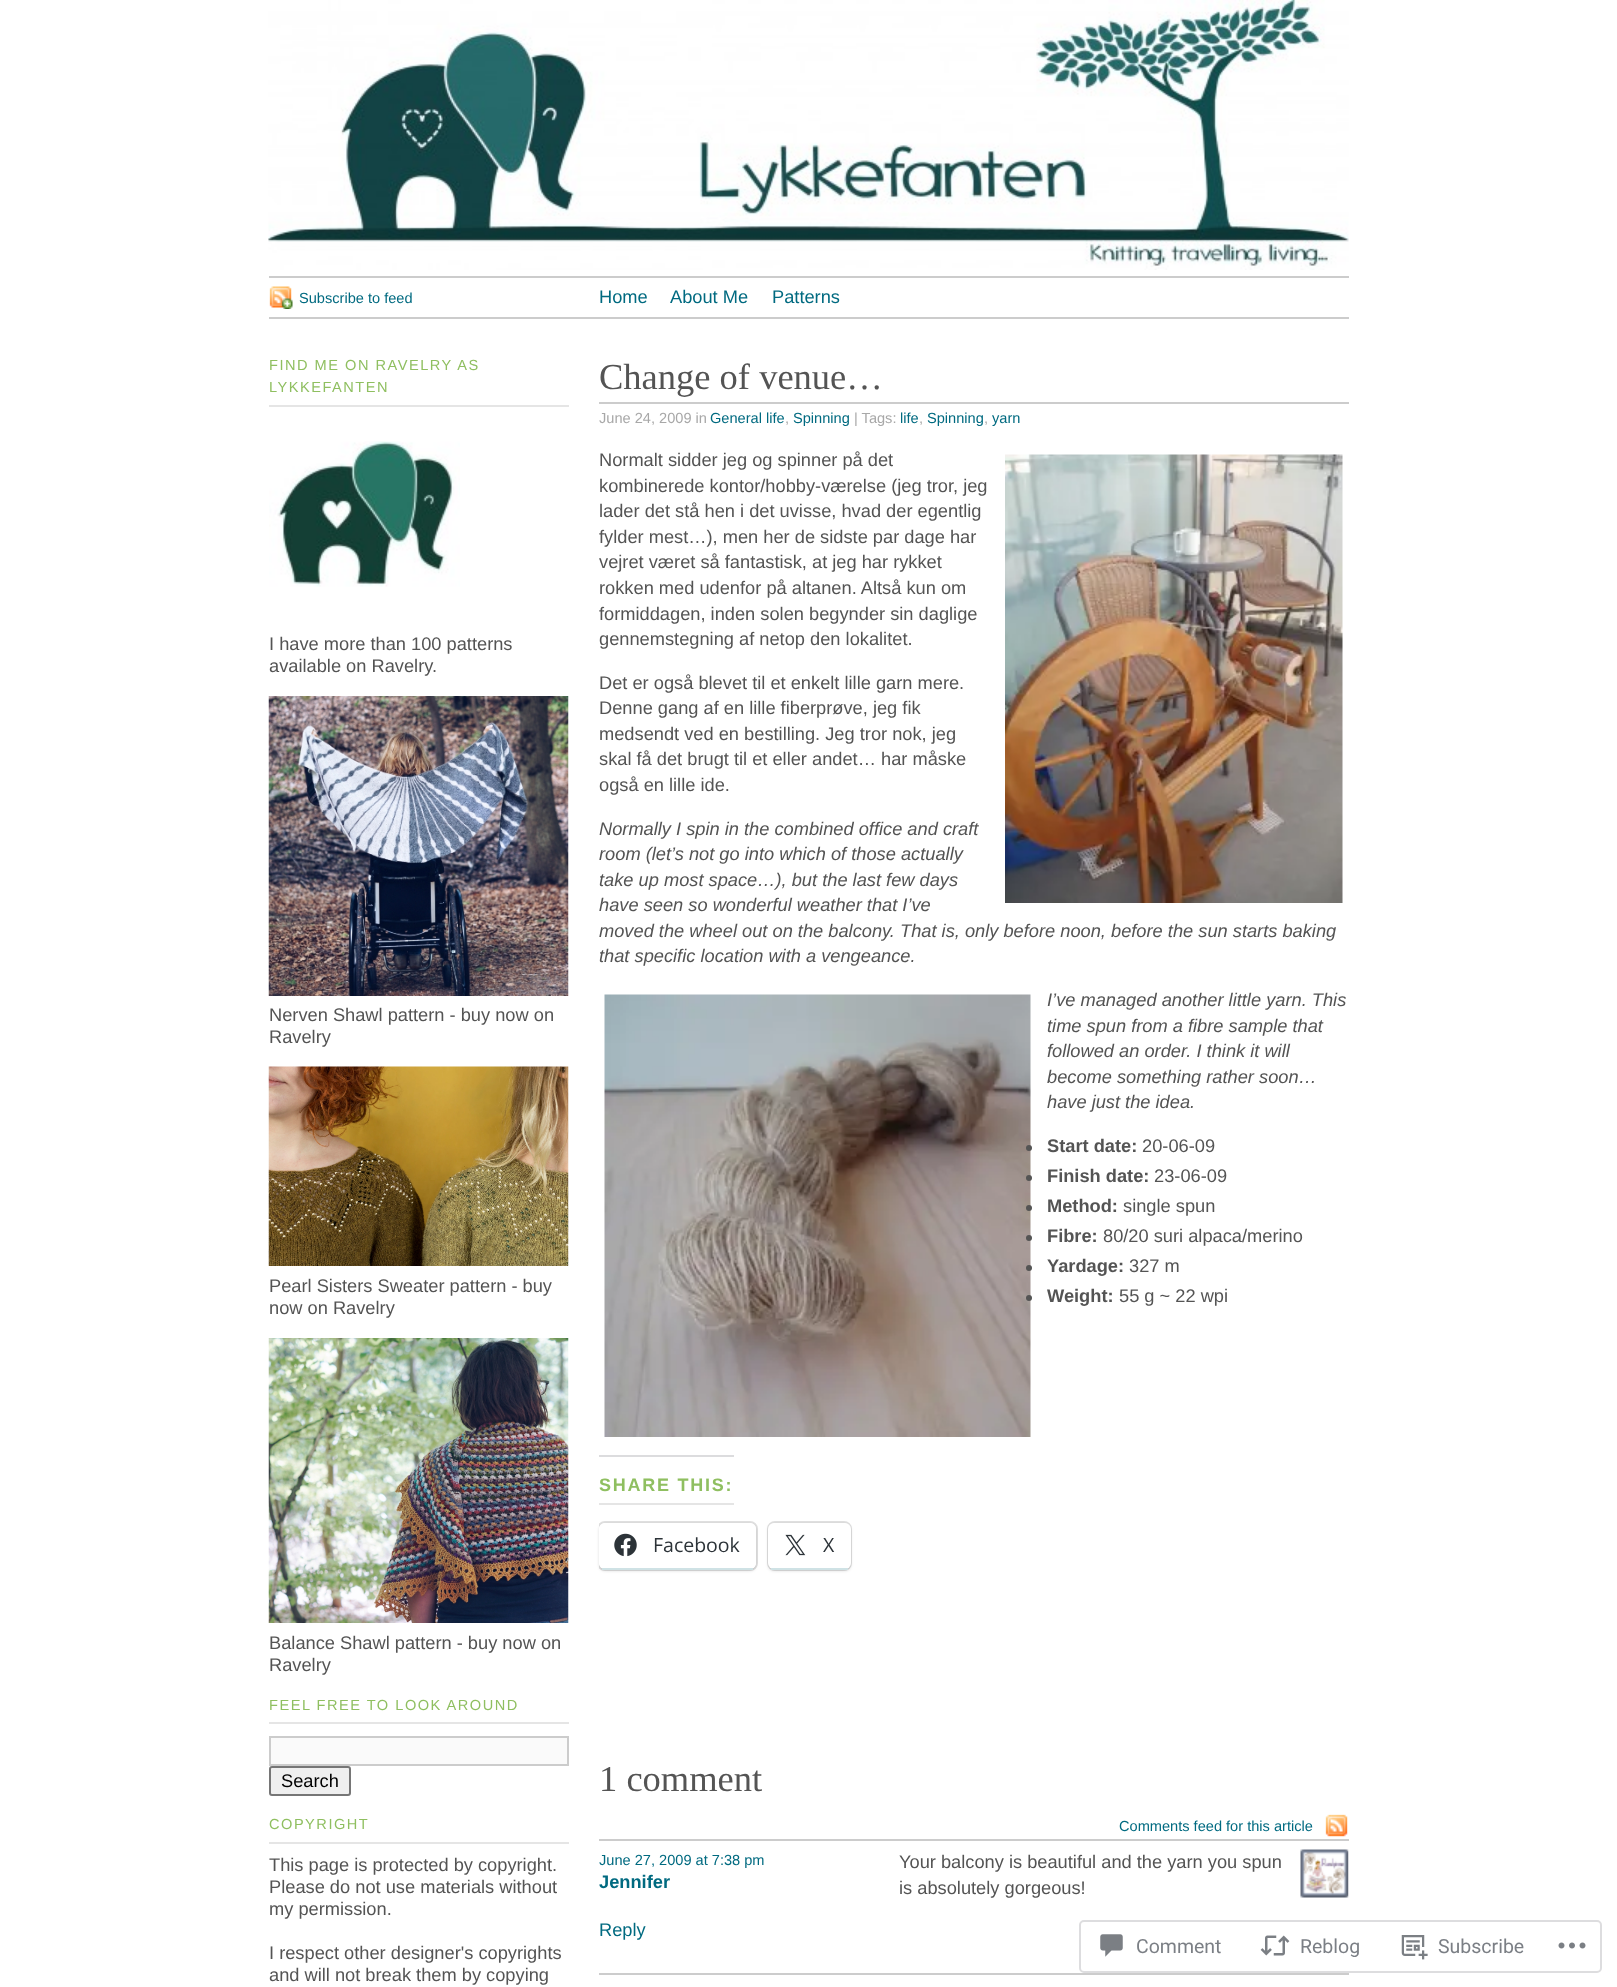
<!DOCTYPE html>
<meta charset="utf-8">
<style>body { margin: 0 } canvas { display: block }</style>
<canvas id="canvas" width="1617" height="1987"></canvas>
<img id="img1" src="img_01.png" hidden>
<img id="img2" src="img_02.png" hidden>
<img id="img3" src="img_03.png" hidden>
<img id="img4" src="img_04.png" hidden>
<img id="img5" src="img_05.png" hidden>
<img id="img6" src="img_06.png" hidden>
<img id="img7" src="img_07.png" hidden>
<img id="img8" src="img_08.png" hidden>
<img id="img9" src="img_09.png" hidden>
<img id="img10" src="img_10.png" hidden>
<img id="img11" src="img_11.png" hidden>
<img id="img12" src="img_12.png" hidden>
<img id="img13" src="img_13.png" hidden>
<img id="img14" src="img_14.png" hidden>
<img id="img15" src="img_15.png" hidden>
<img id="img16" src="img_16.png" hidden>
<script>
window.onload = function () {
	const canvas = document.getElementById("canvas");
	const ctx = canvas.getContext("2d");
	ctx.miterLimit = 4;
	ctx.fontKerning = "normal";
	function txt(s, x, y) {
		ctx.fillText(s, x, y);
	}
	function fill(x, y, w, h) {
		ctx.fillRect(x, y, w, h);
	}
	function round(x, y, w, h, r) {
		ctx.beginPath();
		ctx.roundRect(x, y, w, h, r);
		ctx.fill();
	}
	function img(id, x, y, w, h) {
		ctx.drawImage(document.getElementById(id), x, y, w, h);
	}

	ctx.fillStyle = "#FFFFFF";
	fill(0, 0, 1617, 1987);
	img("img1", 268, 0, 1081, 270);
	ctx.fillStyle = "#CCCCCC";
	fill(269, 276, 1080, 2);
	fill(269, 317, 1080, 2);
	img("img2", 269, 286, 24, 23);
	ctx.fillStyle = "#E5E5E5";
	fill(269, 405, 300, 2);
	img("img3", 269, 441, 191, 146);
	img("img4", 268, 696, 301, 300);
	img("img5", 268, 1066, 301, 200);
	img("img6", 268, 1338, 301, 285);
	fill(269, 1722, 300, 2);
	ctx.fillStyle = "#FAFAFA";
	ctx.beginPath();
	ctx.rect(270, 1737, 298, 28);
	ctx.fill();
	ctx.strokeStyle = "#CCCCCC";
	ctx.lineWidth = 2;
	ctx.stroke();
	ctx.fillStyle = "#EFEFEF";
	ctx.beginPath();
	ctx.roundRect(270, 1767, 80, 28, 2);
	ctx.fill();
	ctx.strokeStyle = "#767676";
	ctx.stroke();
	ctx.fillStyle = "#E5E5E5";
	fill(269, 1842, 300, 2);
	ctx.fillStyle = "#CCCCCC";
	fill(599, 402, 750, 2);
	img("img7", 1005, 454, 338, 449);
	img("img8", 604, 994, 427, 443);
	ctx.fillStyle = "#545454";
	ctx.beginPath();
	ctx.arc(1029, 1148, 3, 0, Math.PI * 2);
	ctx.fill();
	ctx.beginPath();
	ctx.arc(1029, 1178, 3, 0, Math.PI * 2);
	ctx.fill();
	ctx.beginPath();
	ctx.arc(1029, 1208, 3, 0, Math.PI * 2);
	ctx.fill();
	ctx.beginPath();
	ctx.arc(1029, 1238, 3, 0, Math.PI * 2);
	ctx.fill();
	ctx.beginPath();
	ctx.arc(1029, 1268, 3, 0, Math.PI * 2);
	ctx.fill();
	ctx.beginPath();
	ctx.arc(1029, 1298, 3, 0, Math.PI * 2);
	ctx.fill();
	ctx.fillStyle = "#E5E5E5";
	fill(599, 1503, 135, 2);
	ctx.fillStyle = "#DCDCDE";
	fill(599, 1455, 135, 2);
	ctx.save();
	ctx.beginPath();
	ctx.rect(599, 356, 750, 1360);
	ctx.clip();
	ctx.beginPath();
	ctx.roundRect(598, 1522, 159, 48, 7);
	ctx.strokeStyle = "#E0E0E0";
	ctx.stroke();
	ctx.restore();
	ctx.save();
	ctx.beginPath();
	ctx.moveTo(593, 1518);
	ctx.lineTo(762, 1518);
	ctx.lineTo(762, 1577);
	ctx.lineTo(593, 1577);
	ctx.closePath();
	ctx.moveTo(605, 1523);
	ctx.lineTo(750, 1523);
	ctx.bezierCurveTo(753.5, 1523, 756, 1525.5, 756, 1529);
	ctx.lineTo(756, 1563);
	ctx.bezierCurveTo(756, 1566.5, 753.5, 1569, 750, 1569);
	ctx.lineTo(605, 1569);
	ctx.bezierCurveTo(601.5, 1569, 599, 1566.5, 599, 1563);
	ctx.lineTo(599, 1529);
	ctx.bezierCurveTo(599, 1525.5, 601.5, 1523, 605, 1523);
	ctx.closePath();
	ctx.clip("evenodd");
	ctx.fillStyle = "rgba(0, 0, 0, 0.12)";
	ctx.filter = "blur(1.5px)";
	ctx.beginPath();
	ctx.roundRect(599, 1524, 157, 47, 6);
	ctx.fill();
	ctx.filter = "none";
	ctx.restore();
	ctx.fillStyle = "#FFFFFF";
	round(599, 1523, 157, 46, 6);
	ctx.fillStyle = "#CFE2E5";
	fill(602, 1568, 151, 2);
	img("img9", 614, 1533, 23, 24);
	ctx.beginPath();
	ctx.roundRect(768, 1522, 83, 48, 7);
	ctx.strokeStyle = "#E0E0E0";
	ctx.stroke();
	ctx.fillStyle = "rgba(0, 0, 0, 0.12)";
	ctx.filter = "blur(1.5px)";
	ctx.beginPath();
	ctx.roundRect(768, 1524, 83, 47, 6);
	ctx.fill();
	ctx.filter = "none";
	ctx.fillStyle = "#FFFFFF";
	round(768, 1523, 83, 46, 6);
	ctx.fillStyle = "#CFE2E5";
	fill(771, 1568, 77, 2);
	img("img10", 785, 1534, 21, 22);
	img("img11", 1325, 1814, 23, 23);
	ctx.fillStyle = "#CCCCCC";
	fill(599, 1839, 750, 2);
	img("img12", 1300, 1849, 49, 49);
	fill(599, 1973, 750, 2);
	ctx.beginPath();
	ctx.roundRect(1080, 1921, 521, 51, 4);
	ctx.strokeStyle = "#DDDDDF";
	ctx.stroke();
	img("img13", 1100, 1934, 23, 23);
	img("img14", 1260, 1935, 30, 21);
	img("img15", 1401, 1935, 27, 25);
	img("img16", 1558, 1942, 28, 7);
	ctx.font = "14.6px Liberation Sans";
	ctx.fillStyle = "#006A80";
	txt("Subscribe to feed", 299, 303);
	ctx.font = "18.25px Liberation Sans";
	txt("Home", 599, 303);
	txt("About Me", 670, 303);
	txt("Patterns", 772, 303);
	ctx.letterSpacing = "1.5px";
	ctx.font = "14.6px Liberation Sans";
	ctx.fillStyle = "#8FBF60";
	txt("FIND ME ON RAVELRY AS", 269, 370);
	txt("LYKKEFANTEN", 269, 392);
	ctx.letterSpacing = "0px";
	ctx.font = "18.25px Liberation Sans";
	ctx.fillStyle = "#545454";
	txt("I have more than 100 patterns", 269, 650);
	txt("available on Ravelry.", 269, 672);
	txt("Nerven Shawl pattern - buy now on", 269, 1021);
	txt("Ravelry", 269, 1043);
	txt("Pearl Sisters Sweater pattern - buy", 269, 1292);
	txt("now on Ravelry", 269, 1314);
	txt("Balance Shawl pattern - buy now on", 269, 1649);
	txt("Ravelry", 269, 1671);
	ctx.letterSpacing = "1.5px";
	ctx.font = "14.6px Liberation Sans";
	ctx.fillStyle = "#8FBF60";
	txt("FEEL FREE TO LOOK AROUND", 269, 1710);
	ctx.letterSpacing = "0px";
	ctx.font = "18.25px Liberation Sans";
	ctx.fillStyle = "#000000";
	txt("Search", 281, 1787);
	ctx.letterSpacing = "1.5px";
	ctx.font = "14.6px Liberation Sans";
	ctx.fillStyle = "#8FBF60";
	txt("COPYRIGHT", 269, 1829);
	ctx.letterSpacing = "0px";
	ctx.font = "18.25px Liberation Sans";
	ctx.fillStyle = "#545454";
	txt("This page is protected by copyright.", 269, 1871);
	txt("Please do not use materials without", 269, 1893);
	txt("my permission.", 269, 1915);
	txt("I respect other designer's copyrights", 269, 1959);
	txt("and will not break them by copying", 269, 1981);
	ctx.font = "36.5px Liberation Serif";
	txt("Change of venue…", 599, 389);
	ctx.font = "14.6px Liberation Sans";
	ctx.fillStyle = "#A8A8A8";
	txt("June 24, 2009 in", 599, 423);
	ctx.fillStyle = "#006A80";
	txt("General life", 710, 423);
	ctx.fillStyle = "#A8A8A8";
	txt(",", 785, 423);
	ctx.fillStyle = "#006A80";
	txt("Spinning", 793, 423);
	ctx.fillStyle = "#A8A8A8";
	txt("| Tags:", 854, 423);
	ctx.fillStyle = "#006A80";
	txt("life", 900, 423);
	ctx.fillStyle = "#A8A8A8";
	txt(",", 919, 423);
	ctx.fillStyle = "#006A80";
	txt("Spinning", 927, 423);
	ctx.fillStyle = "#A8A8A8";
	txt(",", 984, 423);
	ctx.fillStyle = "#006A80";
	txt("yarn", 992, 423);
	ctx.font = "18.25px Liberation Sans";
	ctx.fillStyle = "#545454";
	txt("Normalt sidder jeg og spinner på det", 599, 466);
	txt("kombinerede kontor/hobby-værelse (jeg tror, jeg", 599, 492);
	txt("lader det stå hen i det uvisse, hvad der egentlig", 599, 517);
	txt("fylder mest…), men her de sidste par dage har", 599, 543);
	txt("vejret været så fantastisk, at jeg har rykket", 599, 568);
	txt("rokken med udenfor på altanen. Altså kun om", 599, 594);
	txt("formiddagen, inden solen begynder sin daglige", 599, 620);
	txt("gennemstegning af netop den lokalitet.", 599, 645);
	txt("Det er også blevet til et enkelt lille garn mere.", 599, 689);
	txt("Denne gang af en lille fiberprøve, jeg fik", 599, 714);
	txt("medsendt ved en bestilling. Jeg tror nok, jeg", 599, 740);
	txt("skal få det brugt til et eller andet… har måske", 599, 765);
	txt("også en lille ide.", 599, 791);
	ctx.font = "italic 18.25px Liberation Sans";
	txt("Normally I spin in the combined office and craft", 599, 835);
	txt("room (let’s not go into which of those actually", 599, 860);
	txt("take up most space…), but the last few days", 599, 886);
	txt("have seen so wonderful weather that I’ve", 599, 911);
	txt("moved the wheel out on the balcony. That is, only before noon, before the sun starts baking", 599, 937);
	txt("that specific location with a vengeance.", 599, 962);
	txt("I’ve managed another little yarn. This", 1047, 1006);
	txt("time spun from a fibre sample that", 1047, 1032);
	txt("followed an order. I think it will", 1047, 1057);
	txt("become something rather soon…", 1047, 1083);
	txt("have just the idea.", 1047, 1108);
	ctx.font = "bold 18.25px Liberation Sans";
	txt("Start date:", 1047, 1152);
	ctx.font = "18.25px Liberation Sans";
	txt("20-06-09", 1142, 1152);
	ctx.font = "bold 18.25px Liberation Sans";
	txt("Finish date:", 1047, 1182);
	ctx.font = "18.25px Liberation Sans";
	txt("23-06-09", 1154, 1182);
	ctx.font = "bold 18.25px Liberation Sans";
	txt("Method:", 1047, 1212);
	ctx.font = "18.25px Liberation Sans";
	txt("single spun", 1123, 1212);
	ctx.font = "bold 18.25px Liberation Sans";
	txt("Fibre:", 1047, 1242);
	ctx.font = "18.25px Liberation Sans";
	txt("80/20 suri alpaca/merino", 1103, 1242);
	ctx.font = "bold 18.25px Liberation Sans";
	txt("Yardage:", 1047, 1272);
	ctx.font = "18.25px Liberation Sans";
	txt("327 m", 1129, 1272);
	ctx.font = "bold 18.25px Liberation Sans";
	txt("Weight:", 1047, 1302);
	ctx.font = "18.25px Liberation Sans";
	txt("55 g ~ 22 wpi", 1119, 1302);
	ctx.letterSpacing = "1.75px";
	ctx.font = "bold 18px Liberation Sans";
	ctx.fillStyle = "#8FBF60";
	txt("SHARE THIS:", 599, 1491);
	ctx.letterSpacing = "0px";
	ctx.font = "19.5px Open Sans";
	ctx.fillStyle = "#2C3338";
	txt("Facebook", 653, 1552);
	txt("X", 823, 1552);
	ctx.font = "36.5px Liberation Serif";
	ctx.fillStyle = "#545454";
	txt("1 comment", 599, 1791);
	ctx.font = "14.6px Liberation Sans";
	ctx.fillStyle = "#006A80";
	txt("Comments feed for this article", 1119, 1831);
	txt("June 27, 2009 at 7:38 pm", 599, 1865);
	ctx.font = "bold 18.25px Liberation Sans";
	txt("Jennifer", 599, 1888);
	ctx.font = "18.25px Liberation Sans";
	ctx.fillStyle = "#545454";
	txt("Your balcony is beautiful and the yarn you spun", 899, 1868);
	txt("is absolutely gorgeous!", 899, 1894);
	ctx.fillStyle = "#006A80";
	txt("Reply", 599, 1936);
	ctx.font = "19.5px Roboto";
	ctx.fillStyle = "#7B7F85";
	txt("Comment", 1136, 1953);
	txt("Reblog", 1300, 1953);
	txt("Subscribe", 1438, 1953);
};
</script>
